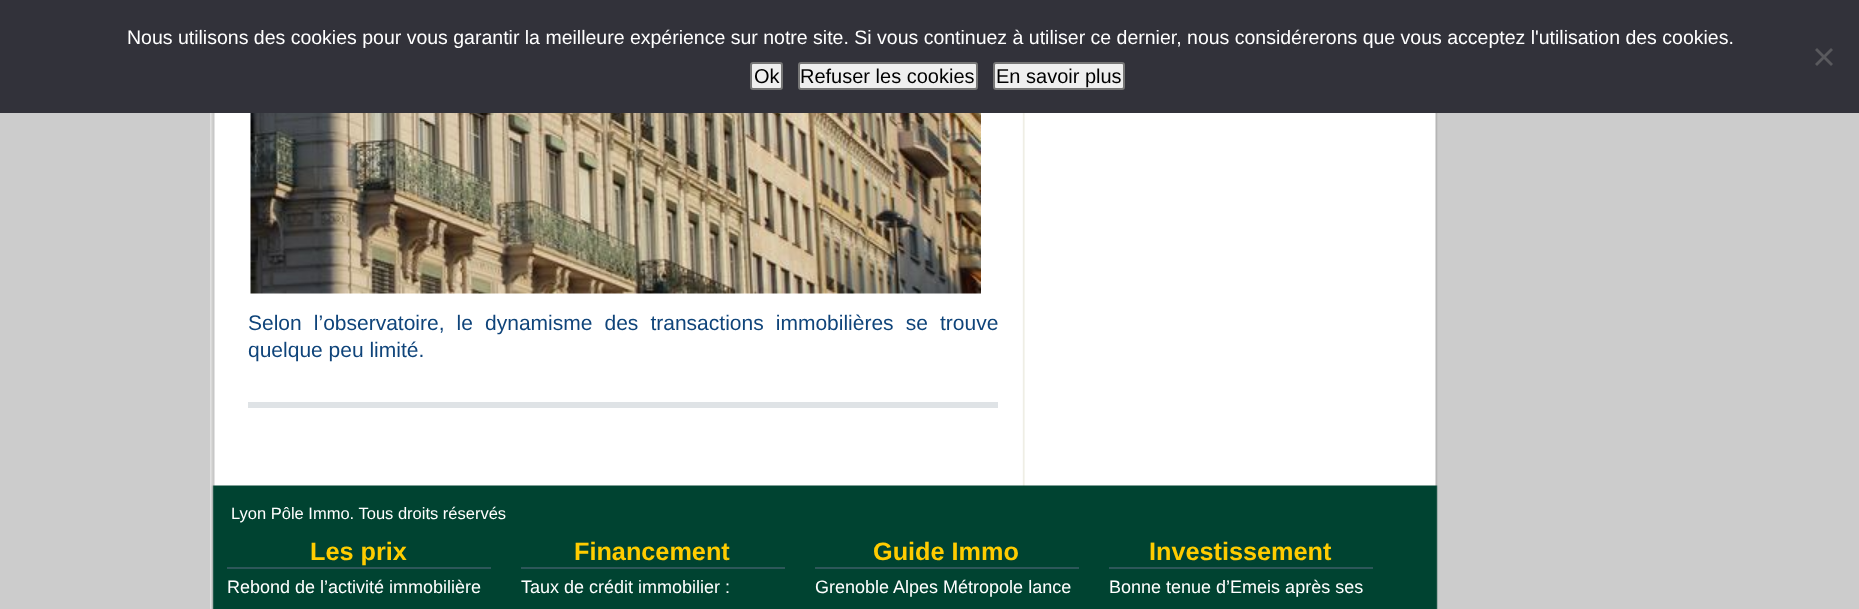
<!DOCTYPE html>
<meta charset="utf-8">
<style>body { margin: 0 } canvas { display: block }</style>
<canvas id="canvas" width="1859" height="609"></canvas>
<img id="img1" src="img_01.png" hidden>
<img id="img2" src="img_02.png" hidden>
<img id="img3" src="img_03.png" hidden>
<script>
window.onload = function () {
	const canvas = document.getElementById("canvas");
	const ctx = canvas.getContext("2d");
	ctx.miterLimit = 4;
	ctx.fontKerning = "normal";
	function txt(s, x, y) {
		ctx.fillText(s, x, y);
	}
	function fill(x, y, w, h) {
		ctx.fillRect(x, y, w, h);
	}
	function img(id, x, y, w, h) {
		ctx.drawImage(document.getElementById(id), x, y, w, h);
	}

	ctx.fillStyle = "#CCCCCC";
	fill(0, 0, 1859, 609);
	img("img1", 210, 113, 1228, 496);
	img("img2", 211, 485, 1227, 124);
	ctx.fillStyle = "#32323A";
	fill(0, 0, 1859, 113);
	ctx.fillStyle = "#59595D";
	ctx.beginPath();
	ctx.moveTo(1831, 48);
	ctx.lineTo(1833, 50);
	ctx.lineTo(1817, 66);
	ctx.lineTo(1815, 64);
	ctx.closePath();
	ctx.fill();
	ctx.beginPath();
	ctx.moveTo(1815, 50);
	ctx.lineTo(1817, 48);
	ctx.lineTo(1833, 64);
	ctx.lineTo(1831, 66);
	ctx.closePath();
	ctx.fill();
	ctx.fillStyle = "#EFEFEF";
	ctx.beginPath();
	ctx.roundRect(751, 63, 31, 26, 2);
	ctx.fill();
	ctx.strokeStyle = "#767676";
	ctx.lineWidth = 2;
	ctx.stroke();
	ctx.beginPath();
	ctx.roundRect(799, 63, 178, 26, 2);
	ctx.fill();
	ctx.stroke();
	ctx.beginPath();
	ctx.roundRect(994, 63, 130, 26, 2);
	ctx.fill();
	ctx.stroke();
	ctx.fillStyle = "#2D5759";
	fill(227, 567, 264, 2);
	fill(521, 567, 264, 2);
	fill(815, 567, 264, 2);
	fill(1109, 567, 264, 2);
	img("img3", 250, 113, 731, 181);
	ctx.fillStyle = "#DFE3E6";
	fill(248, 402, 750, 6);
	ctx.font = "19.5px Liberation Sans";
	ctx.fillStyle = "#FFFFFF";
	txt("Nous utilisons des cookies pour vous garantir la meilleure expérience sur notre site. Si vous continuez à utiliser ce dernier, nous considérerons que vous acceptez l'utilisation des cookies.", 127, 44);
	ctx.font = "20px Liberation Sans";
	ctx.fillStyle = "#000000";
	txt("Ok", 754, 83);
	txt("Refuser les cookies", 800, 83);
	txt("En savoir plus", 996, 83);
	ctx.font = "16.5px Liberation Sans";
	ctx.fillStyle = "#FFFFFF";
	txt("Lyon Pôle Immo. Tous droits réservés", 231, 519);
	ctx.font = "bold 25.25px Liberation Sans";
	ctx.fillStyle = "#FFCC00";
	txt("Les prix", 310, 560);
	ctx.font = "18px Liberation Sans";
	ctx.fillStyle = "#FFFFFF";
	txt("Rebond de l’activité immobilière", 227, 593);
	ctx.font = "bold 25.25px Liberation Sans";
	ctx.fillStyle = "#FFCC00";
	txt("Financement", 574, 560);
	ctx.font = "18px Liberation Sans";
	ctx.fillStyle = "#FFFFFF";
	txt("Taux de crédit immobilier :", 521, 593);
	ctx.font = "bold 25.25px Liberation Sans";
	ctx.fillStyle = "#FFCC00";
	txt("Guide Immo", 873, 560);
	ctx.font = "18px Liberation Sans";
	ctx.fillStyle = "#FFFFFF";
	txt("Grenoble Alpes Métropole lance", 815, 593);
	ctx.font = "bold 25.25px Liberation Sans";
	ctx.fillStyle = "#FFCC00";
	txt("Investissement", 1149, 560);
	ctx.font = "18px Liberation Sans";
	ctx.fillStyle = "#FFFFFF";
	txt("Bonne tenue d’Emeis après ses", 1109, 593);
	ctx.wordSpacing = "6.25px";
	ctx.font = "21px Liberation Sans";
	ctx.fillStyle = "#0F447A";
	txt("Selon l’observatoire, le dynamisme des transactions immobilières se trouve", 248, 330);
	ctx.wordSpacing = "0px";
	txt("quelque peu limité.", 248, 357);
};
</script>
